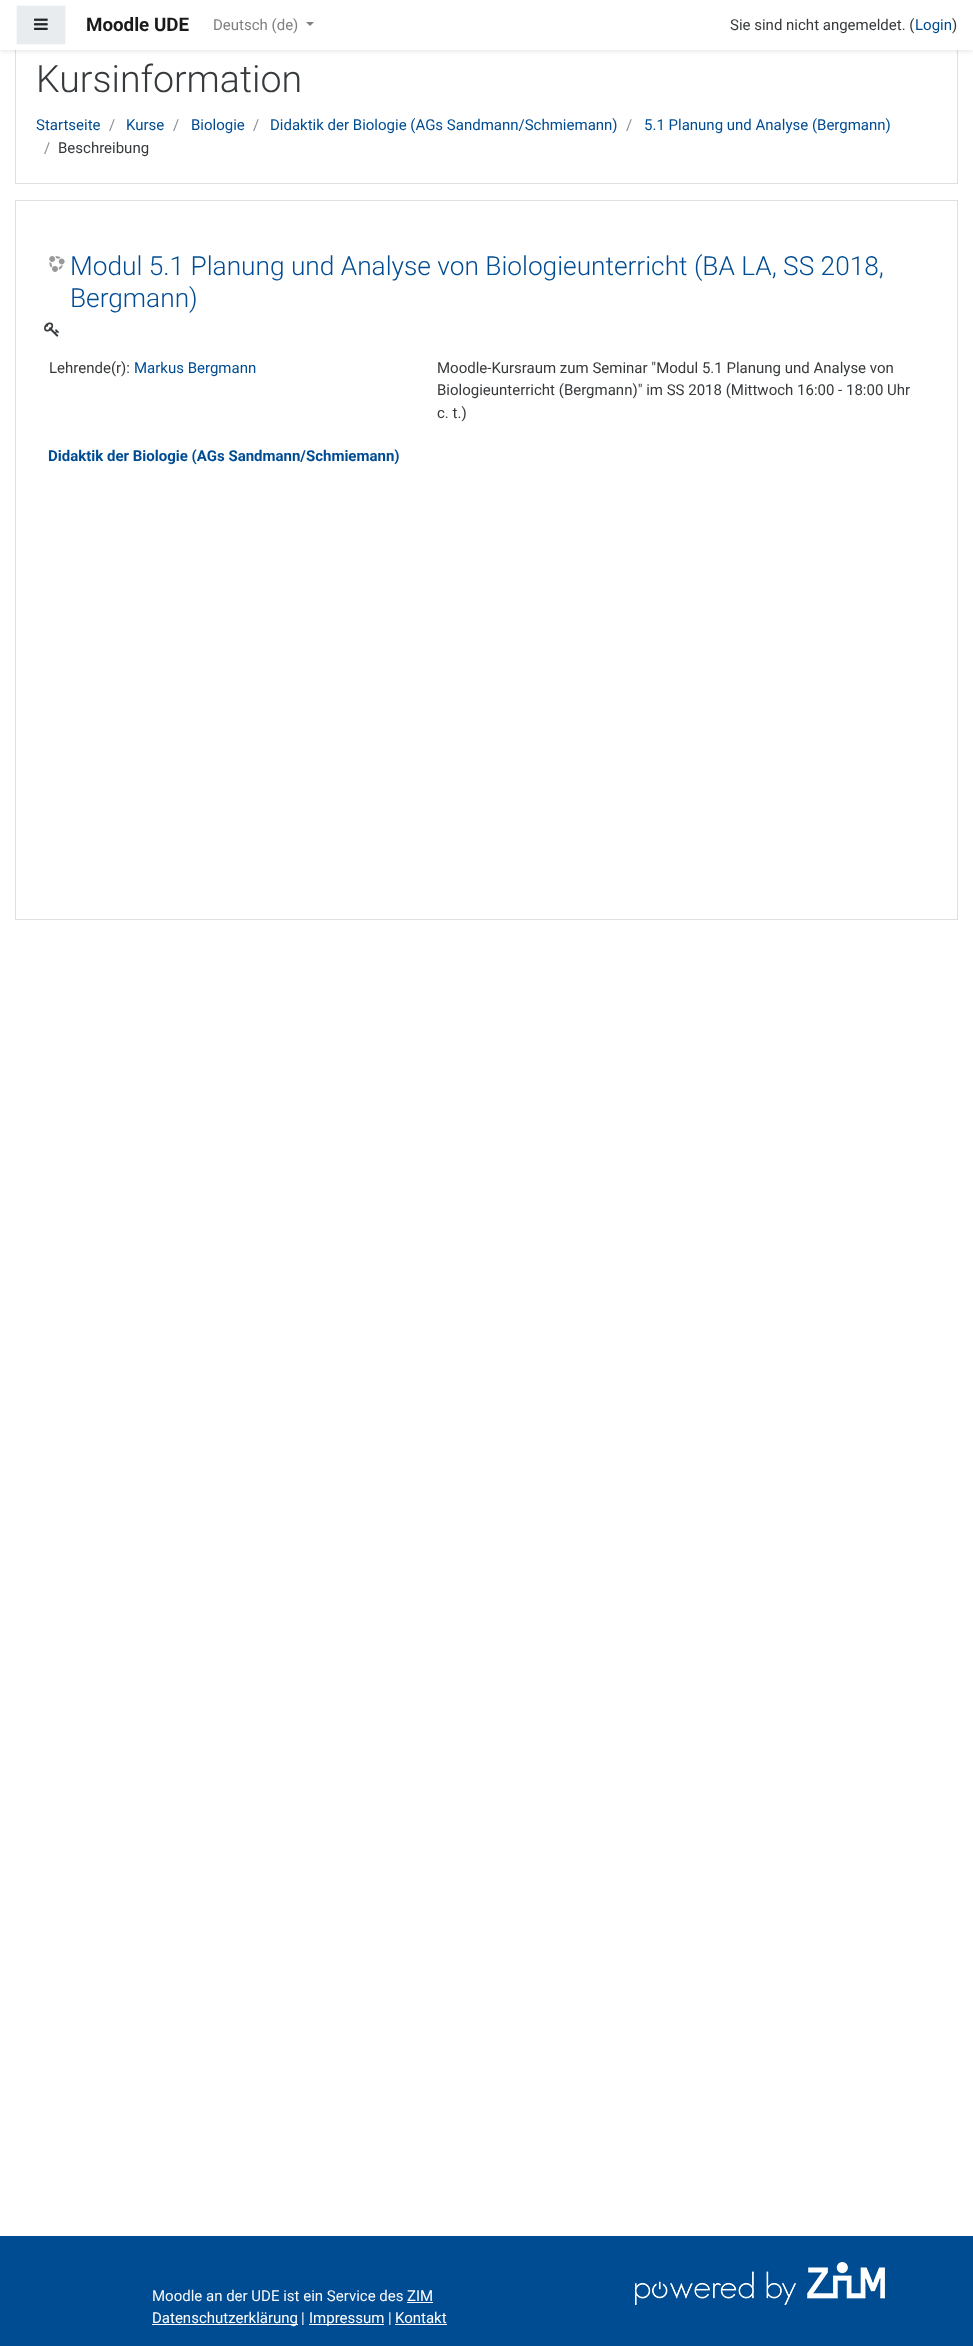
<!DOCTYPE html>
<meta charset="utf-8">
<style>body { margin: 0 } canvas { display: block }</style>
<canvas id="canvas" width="973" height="2346"></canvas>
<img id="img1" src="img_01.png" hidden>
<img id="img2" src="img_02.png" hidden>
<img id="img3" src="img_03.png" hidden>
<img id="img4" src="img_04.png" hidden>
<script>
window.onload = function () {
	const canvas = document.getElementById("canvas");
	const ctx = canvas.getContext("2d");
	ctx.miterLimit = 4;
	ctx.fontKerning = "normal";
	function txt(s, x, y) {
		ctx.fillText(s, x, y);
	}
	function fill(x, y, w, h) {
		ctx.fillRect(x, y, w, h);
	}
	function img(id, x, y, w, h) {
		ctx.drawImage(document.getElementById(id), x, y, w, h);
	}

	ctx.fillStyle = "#FFFFFF";
	fill(0, 0, 973, 2346);
	ctx.strokeStyle = "#DFDFDF";
	ctx.strokeRect(15.5, 36.5, 942, 147);
	ctx.fillStyle = "rgba(0, 0, 0, 0.08)";
	ctx.filter = "blur(2px)";
	ctx.beginPath();
	ctx.rect(0, 2, 973, 50);
	ctx.fill();
	ctx.filter = "none";
	ctx.fillStyle = "#FFFFFF";
	fill(0, 0, 973, 50);
	ctx.fillStyle = "#E9ECEF";
	ctx.beginPath();
	ctx.rect(16.5, 5.5, 49, 39);
	ctx.fill();
	ctx.strokeStyle = "#F8F9FA";
	ctx.stroke();
	img("img1", 34, 18, 14, 12);
	ctx.fillStyle = "#808080";
	ctx.beginPath();
	ctx.moveTo(306, 22);
	ctx.lineTo(314, 22);
	ctx.lineTo(310, 26);
	ctx.closePath();
	ctx.fill();
	ctx.strokeStyle = "#DFDFDF";
	ctx.strokeRect(15.5, 200.5, 942, 719);
	img("img2", 49, 256, 16, 16);
	img("img3", 44, 322, 15, 15);
	ctx.fillStyle = "#004C93";
	fill(0, 2236, 973, 110);
	ctx.fillStyle = "#FFFFFF";
	fill(407, 2302, 26, 1);
	fill(152, 2324, 146, 1);
	fill(309, 2324, 75, 1);
	fill(395, 2324, 52, 1);
	img("img4", 635, 2262, 250, 43);
	ctx.font = "bold 18.75px Roboto";
	ctx.fillStyle = "#1A1A1A";
	txt("Moodle UDE", 86, 31);
	ctx.font = "15px Roboto";
	ctx.fillStyle = "#808080";
	txt("Deutsch (de)", 213, 30);
	ctx.fillStyle = "#373A3C";
	txt("Sie sind nicht angemeldet. (", 730, 30);
	ctx.fillStyle = "#004C93";
	txt("Login", 915, 30);
	ctx.fillStyle = "#373A3C";
	txt(")", 952, 30);
	ctx.font = "300 37.5px Roboto";
	txt("Kursinformation", 36, 92);
	ctx.font = "15px Roboto";
	ctx.fillStyle = "#004C93";
	txt("Startseite", 36, 130);
	ctx.fillStyle = "#868E96";
	txt("/", 109, 130);
	ctx.fillStyle = "#004C93";
	txt("Kurse", 126, 130);
	ctx.fillStyle = "#868E96";
	txt("/", 173, 130);
	ctx.fillStyle = "#004C93";
	txt("Biologie", 191, 130);
	ctx.fillStyle = "#868E96";
	txt("/", 253, 130);
	ctx.fillStyle = "#004C93";
	txt("Didaktik der Biologie (AGs Sandmann/Schmiemann)", 270, 130);
	ctx.fillStyle = "#868E96";
	txt("/", 626, 130);
	ctx.fillStyle = "#004C93";
	txt("5.1 Planung und Analyse (Bergmann)", 644, 130);
	ctx.fillStyle = "#868E96";
	txt("/", 44, 153);
	ctx.fillStyle = "#373A3C";
	txt("Beschreibung", 58, 153);
	ctx.font = "300 26.25px Roboto";
	ctx.fillStyle = "#004C93";
	txt("Modul 5.1 Planung und Analyse von Biologieunterricht (BA LA, SS 2018,", 70, 275);
	txt("Bergmann)", 70, 307);
	ctx.font = "15px Roboto";
	ctx.fillStyle = "#373A3C";
	txt("Lehrende(r):", 49, 373);
	ctx.fillStyle = "#004C93";
	txt("Markus Bergmann", 134, 373);
	ctx.fillStyle = "#373A3C";
	txt("Moodle-Kursraum zum Seminar \"Modul 5.1 Planung und Analyse von", 437, 373);
	txt("Biologieunterricht (Bergmann)\" im SS 2018 (Mittwoch 16:00 - 18:00 Uhr", 437, 395);
	txt("c. t.)", 437, 418);
	ctx.font = "bold 15px Roboto";
	ctx.fillStyle = "#004C93";
	txt("Didaktik der Biologie (AGs Sandmann/Schmiemann)", 48, 461);
	ctx.font = "15px Roboto";
	ctx.fillStyle = "#F8F9FA";
	txt("Moodle an der UDE ist ein Service des", 152, 2301);
	ctx.fillStyle = "#FFFFFF";
	txt("ZIM", 407, 2301);
	txt("Datenschutzerklärung", 152, 2323);
	ctx.fillStyle = "#F8F9FA";
	txt("|", 301, 2323);
	ctx.fillStyle = "#FFFFFF";
	txt("Impressum", 309, 2323);
	ctx.fillStyle = "#F8F9FA";
	txt("|", 388, 2323);
	ctx.fillStyle = "#FFFFFF";
	txt("Kontakt", 395, 2323);
};
</script>
